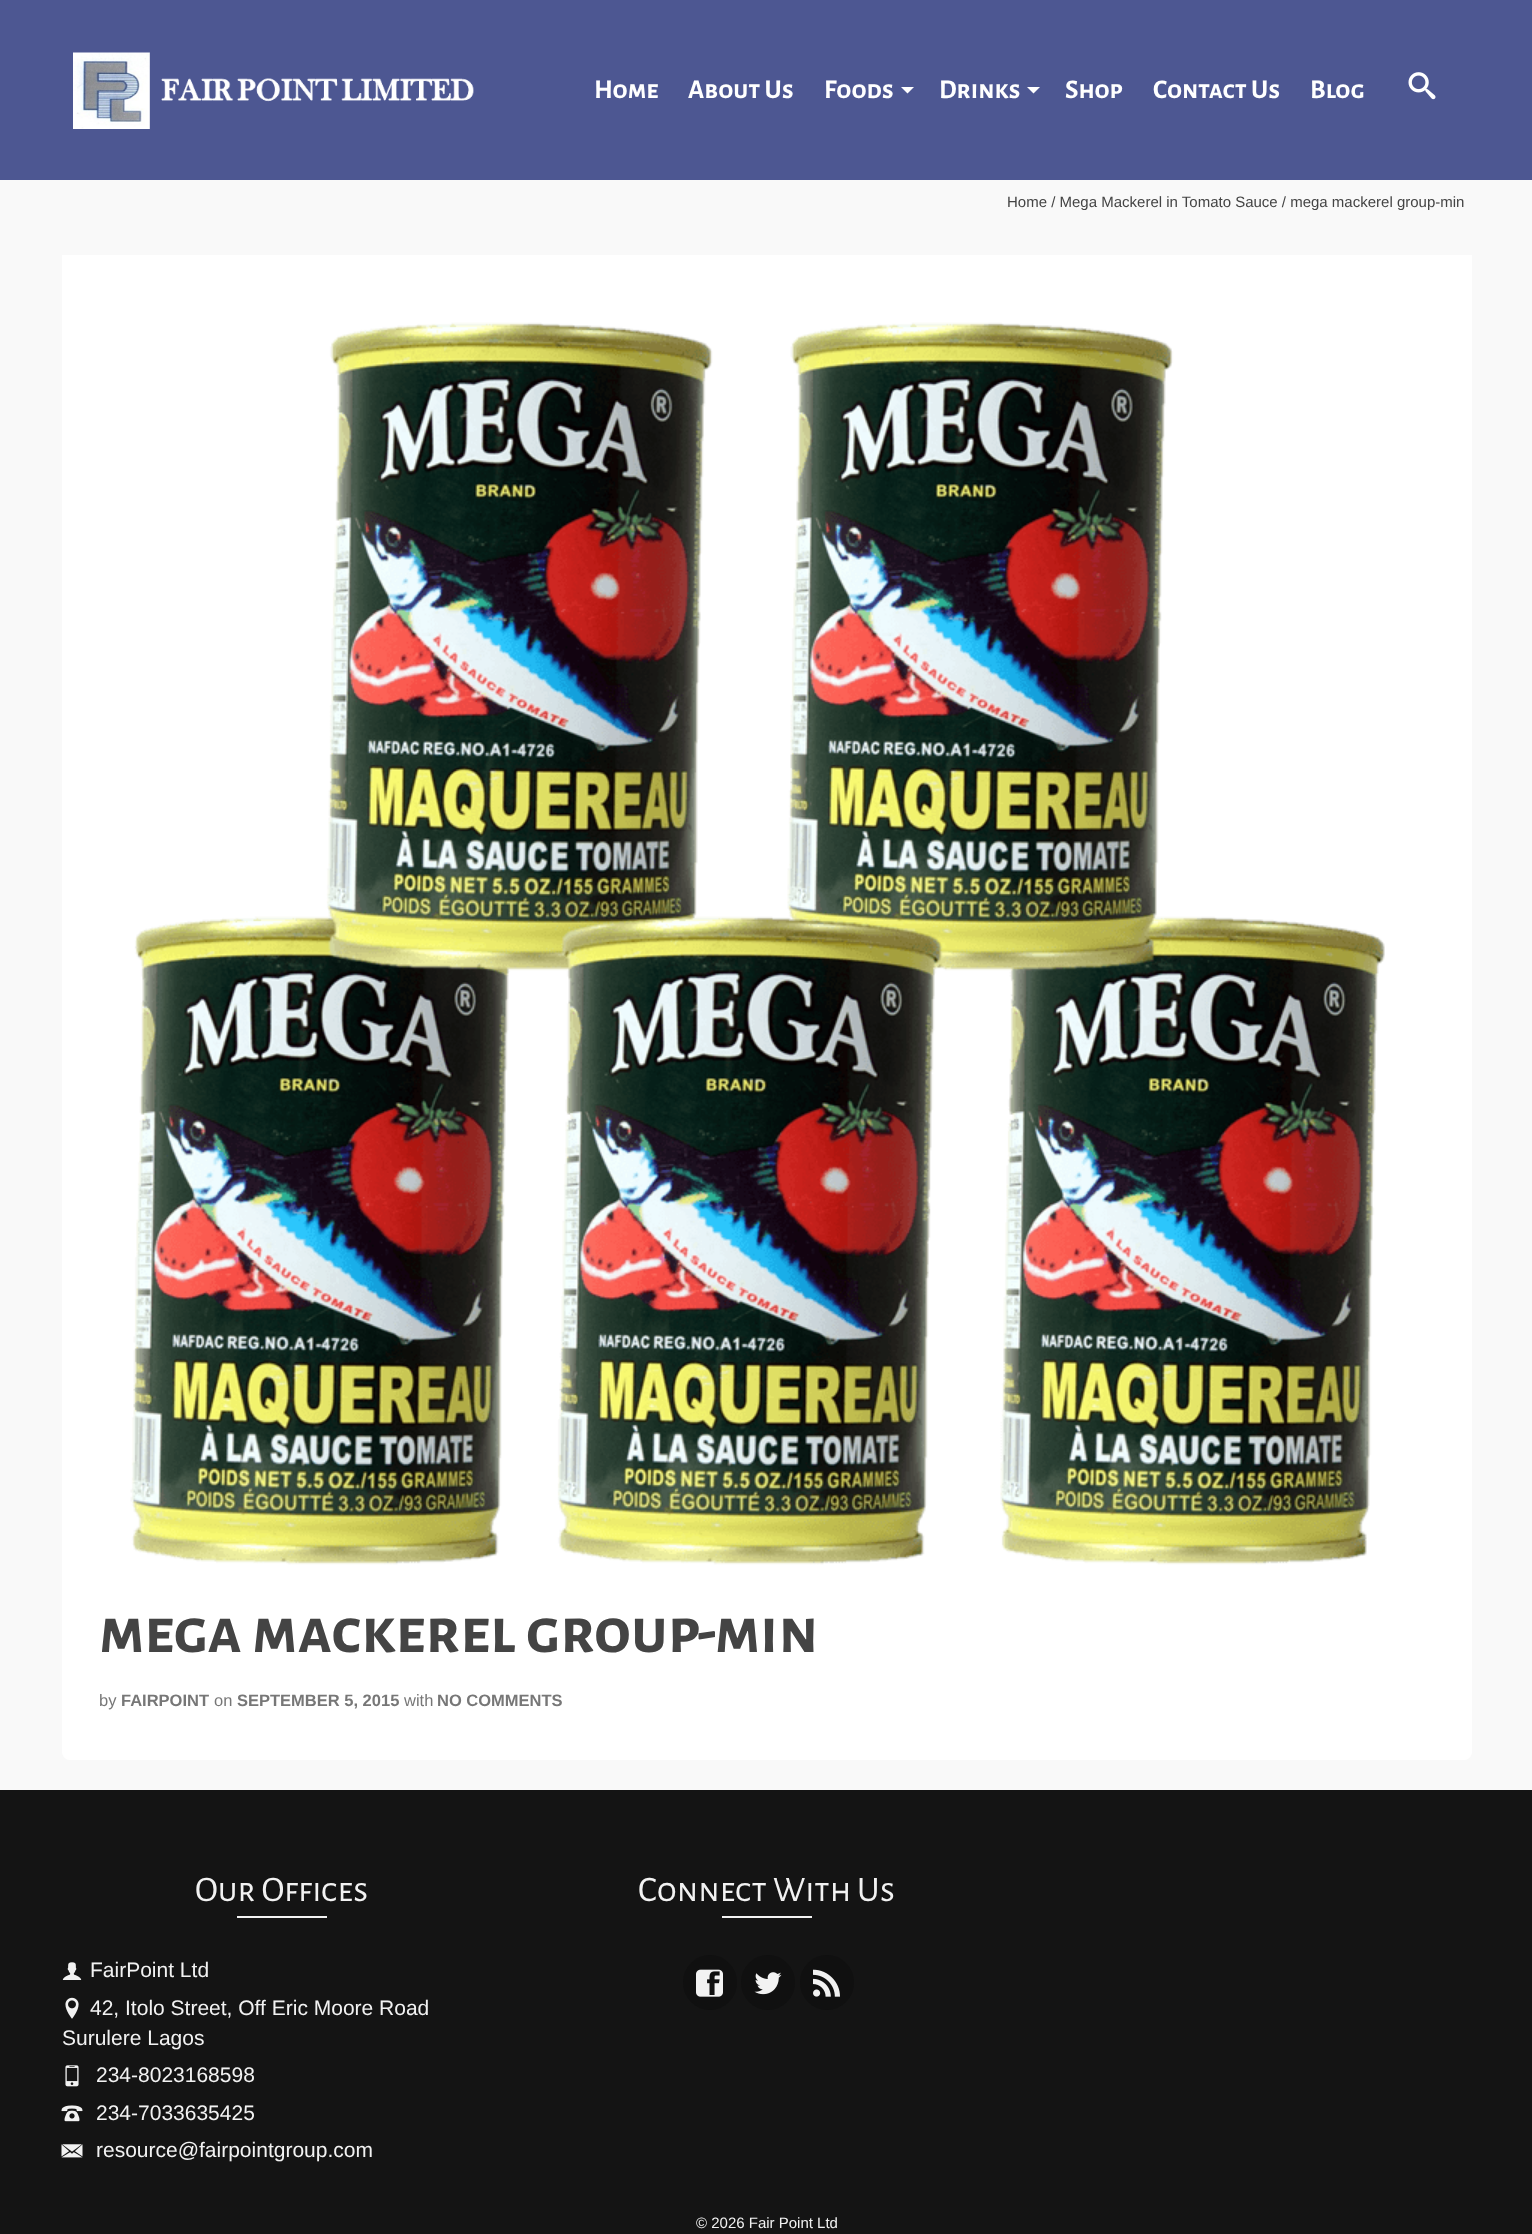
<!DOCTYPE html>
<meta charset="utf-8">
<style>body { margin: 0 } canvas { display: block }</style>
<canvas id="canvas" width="1532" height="2234"></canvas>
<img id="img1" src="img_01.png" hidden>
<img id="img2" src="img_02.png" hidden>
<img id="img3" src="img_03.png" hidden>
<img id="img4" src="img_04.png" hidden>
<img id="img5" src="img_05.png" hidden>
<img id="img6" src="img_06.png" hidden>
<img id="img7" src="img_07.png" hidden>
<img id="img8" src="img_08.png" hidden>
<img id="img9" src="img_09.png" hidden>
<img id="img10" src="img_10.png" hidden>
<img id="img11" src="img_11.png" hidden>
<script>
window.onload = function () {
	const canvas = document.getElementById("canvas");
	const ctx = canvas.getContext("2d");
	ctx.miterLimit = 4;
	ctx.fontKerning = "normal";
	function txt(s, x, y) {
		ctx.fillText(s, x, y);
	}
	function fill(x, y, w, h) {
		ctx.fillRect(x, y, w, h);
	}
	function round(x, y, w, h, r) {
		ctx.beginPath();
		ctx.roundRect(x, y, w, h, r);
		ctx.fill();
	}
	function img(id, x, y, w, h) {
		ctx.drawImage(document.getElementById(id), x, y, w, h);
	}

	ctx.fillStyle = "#4D5792";
	fill(0, 0, 1532, 2234);
	img("img1", 73, 52, 401, 77);
	ctx.fillStyle = "#FFFFFF";
	ctx.beginPath();
	ctx.moveTo(901, 87);
	ctx.lineTo(907.5, 93.5);
	ctx.lineTo(914, 87);
	ctx.closePath();
	ctx.fill();
	ctx.beginPath();
	ctx.moveTo(1027, 87);
	ctx.lineTo(1033.5, 93.5);
	ctx.lineTo(1040, 87);
	ctx.closePath();
	ctx.fill();
	img("img2", 1408, 72, 28, 28);
	ctx.fillStyle = "#F9F9F9";
	fill(0, 180, 1532, 1610);
	ctx.fillStyle = "#FFFFFF";
	ctx.beginPath();
	ctx.roundRect(62, 255, 1410, 1505, [0, 0, 8, 8]);
	ctx.fill();
	img("img3", 130, 322, 1255, 1243);
	ctx.fillStyle = "#141414";
	fill(0, 1790, 1532, 444);
	ctx.fillStyle = "#F2F2F2";
	fill(237, 1916, 90, 2);
	img("img4", 62, 1962, 20, 18);
	img("img5", 65, 1997, 14, 22);
	img("img6", 65, 2065, 14, 22);
	img("img7", 61, 2105, 22, 17);
	img("img8", 61, 2144, 22, 14);
	fill(722, 1916, 90, 2);
	ctx.fillStyle = "#101010";
	round(683, 1955, 54, 55, 27);
	img("img9", 696, 1969, 27, 28);
	round(741, 1955, 54, 55, 27);
	img("img10", 754, 1972, 28, 23);
	round(800, 1955, 54, 55, 27);
	img("img11", 813, 1969, 27, 28);
	ctx.font = "bold 27px Alegreya Sans SC";
	ctx.fillStyle = "#FFFFFF";
	txt("Home", 594, 98);
	txt("About Us", 688, 98);
	txt("Foods", 824, 98);
	txt("Drinks", 939, 98);
	txt("Shop", 1065, 98);
	txt("Contact Us", 1153, 98);
	txt("Blog", 1310, 98);
	ctx.font = "15px Liberation Sans";
	ctx.fillStyle = "#444444";
	txt("Home / Mega Mackerel in Tomato Sauce / mega mackerel group-min", 1007, 207);
	ctx.font = "bold 66px Alegreya Sans SC";
	txt("mega mackerel group-min", 99, 1652);
	ctx.font = "16.5px Liberation Sans";
	ctx.fillStyle = "#777777";
	txt("by", 99, 1706);
	ctx.font = "bold 16.5px Liberation Sans";
	txt("FAIRPOINT", 121, 1706);
	ctx.font = "16.5px Liberation Sans";
	txt("on", 214, 1706);
	ctx.font = "bold 16.5px Liberation Sans";
	txt("SEPTEMBER 5, 2015", 237, 1706);
	ctx.font = "16.5px Liberation Sans";
	txt("with", 404, 1706);
	ctx.font = "bold 16.5px Liberation Sans";
	txt("NO COMMENTS", 437, 1706);
	ctx.font = "36px Alegreya Sans SC";
	ctx.fillStyle = "#F2F2F2";
	txt("Our Offices", 195, 1901);
	ctx.font = "21px Liberation Sans";
	txt("FairPoint Ltd", 90, 1977);
	txt("42, Itolo Street, Off Eric Moore Road", 90, 2015);
	txt("Surulere Lagos", 62, 2045);
	txt("234-8023168598", 96, 2082);
	txt("234-7033635425", 96, 2120);
	txt("resource@fairpointgroup.com", 96, 2157);
	ctx.font = "36px Alegreya Sans SC";
	txt("Connect With Us", 638, 1901);
	ctx.font = "15px Liberation Sans";
	txt("© 2026 Fair Point Ltd", 696, 2228);
};
</script>
